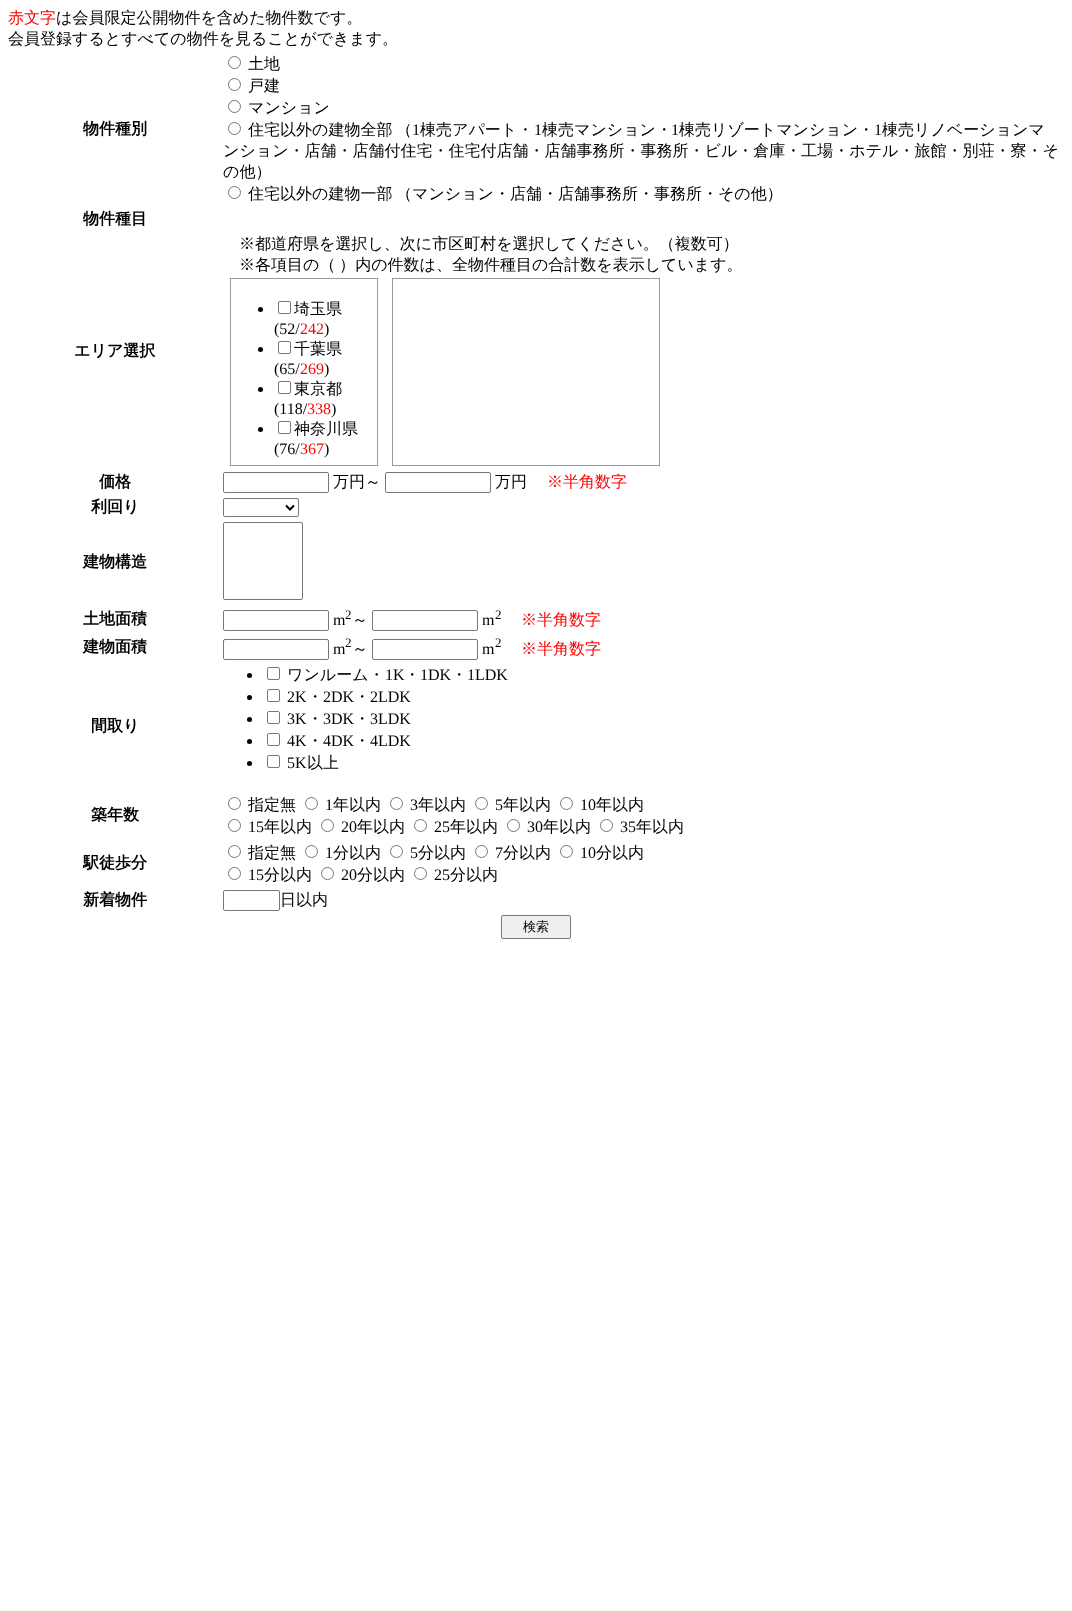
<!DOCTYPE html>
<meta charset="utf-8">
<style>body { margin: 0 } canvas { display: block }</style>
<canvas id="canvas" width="1072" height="1611"></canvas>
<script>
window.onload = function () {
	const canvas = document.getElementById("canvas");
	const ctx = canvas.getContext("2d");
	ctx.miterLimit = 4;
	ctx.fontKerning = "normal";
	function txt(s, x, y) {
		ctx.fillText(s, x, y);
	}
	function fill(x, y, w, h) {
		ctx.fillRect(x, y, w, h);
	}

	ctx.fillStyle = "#FFFFFF";
	fill(0, 0, 1072, 1611);
	ctx.beginPath();
	ctx.arc(234.5, 62.5, 6, 0, Math.PI * 2);
	ctx.strokeStyle = "#767676";
	ctx.stroke();
	ctx.beginPath();
	ctx.arc(234.5, 84.5, 6, 0, Math.PI * 2);
	ctx.stroke();
	ctx.beginPath();
	ctx.arc(234.5, 106.5, 6, 0, Math.PI * 2);
	ctx.stroke();
	ctx.beginPath();
	ctx.arc(234.5, 128.5, 6, 0, Math.PI * 2);
	ctx.stroke();
	ctx.beginPath();
	ctx.arc(234.5, 192.5, 6, 0, Math.PI * 2);
	ctx.stroke();
	ctx.strokeStyle = "#999999";
	ctx.strokeRect(230.5, 278.5, 147, 187);
	ctx.fillStyle = "#000000";
	ctx.beginPath();
	ctx.arc(260.5, 309.5, 2.5, 0, Math.PI * 2);
	ctx.fill();
	ctx.beginPath();
	ctx.roundRect(278.5, 301.5, 12, 12, 1.5);
	ctx.strokeStyle = "#767676";
	ctx.stroke();
	ctx.beginPath();
	ctx.arc(260.5, 349.5, 2.5, 0, Math.PI * 2);
	ctx.fill();
	ctx.beginPath();
	ctx.roundRect(278.5, 341.5, 12, 12, 1.5);
	ctx.stroke();
	ctx.beginPath();
	ctx.arc(260.5, 389.5, 2.5, 0, Math.PI * 2);
	ctx.fill();
	ctx.beginPath();
	ctx.roundRect(278.5, 381.5, 12, 12, 1.5);
	ctx.stroke();
	ctx.beginPath();
	ctx.arc(260.5, 429.5, 2.5, 0, Math.PI * 2);
	ctx.fill();
	ctx.beginPath();
	ctx.roundRect(278.5, 421.5, 12, 12, 1.5);
	ctx.stroke();
	ctx.strokeStyle = "#999999";
	ctx.strokeRect(392.5, 278.5, 267, 187);
	ctx.beginPath();
	ctx.roundRect(223.5, 472.5, 105, 20, 1.5);
	ctx.strokeStyle = "#767676";
	ctx.stroke();
	ctx.beginPath();
	ctx.roundRect(385.5, 472.5, 105, 20, 1.5);
	ctx.stroke();
	ctx.beginPath();
	ctx.roundRect(223.5, 498.5, 75, 18, 1.5);
	ctx.stroke();
	ctx.beginPath();
	ctx.moveTo(286, 505.5);
	ctx.lineTo(290, 509.5);
	ctx.lineTo(294, 505.5);
	ctx.strokeStyle = "#000000";
	ctx.lineWidth = 2;
	ctx.stroke();
	ctx.beginPath();
	ctx.roundRect(223.5, 522.5, 79, 77, 1.5);
	ctx.strokeStyle = "#767676";
	ctx.lineWidth = 1;
	ctx.stroke();
	ctx.beginPath();
	ctx.roundRect(223.5, 610.5, 105, 20, 1.5);
	ctx.stroke();
	ctx.beginPath();
	ctx.roundRect(372.5, 610.5, 105, 20, 1.5);
	ctx.stroke();
	ctx.beginPath();
	ctx.roundRect(223.5, 639.5, 105, 20, 1.5);
	ctx.stroke();
	ctx.beginPath();
	ctx.roundRect(372.5, 639.5, 105, 20, 1.5);
	ctx.stroke();
	ctx.beginPath();
	ctx.arc(249.5, 675.5, 2.5, 0, Math.PI * 2);
	ctx.fill();
	ctx.beginPath();
	ctx.roundRect(267.5, 667.5, 12, 12, 1.5);
	ctx.stroke();
	ctx.beginPath();
	ctx.arc(249.5, 697.5, 2.5, 0, Math.PI * 2);
	ctx.fill();
	ctx.beginPath();
	ctx.roundRect(267.5, 689.5, 12, 12, 1.5);
	ctx.stroke();
	ctx.beginPath();
	ctx.arc(249.5, 719.5, 2.5, 0, Math.PI * 2);
	ctx.fill();
	ctx.beginPath();
	ctx.roundRect(267.5, 711.5, 12, 12, 1.5);
	ctx.stroke();
	ctx.beginPath();
	ctx.arc(249.5, 741.5, 2.5, 0, Math.PI * 2);
	ctx.fill();
	ctx.beginPath();
	ctx.roundRect(267.5, 733.5, 12, 12, 1.5);
	ctx.stroke();
	ctx.beginPath();
	ctx.arc(249.5, 763.5, 2.5, 0, Math.PI * 2);
	ctx.fill();
	ctx.beginPath();
	ctx.roundRect(267.5, 755.5, 12, 12, 1.5);
	ctx.stroke();
	ctx.beginPath();
	ctx.arc(234.5, 803.5, 6, 0, Math.PI * 2);
	ctx.stroke();
	ctx.beginPath();
	ctx.arc(311.5, 803.5, 6, 0, Math.PI * 2);
	ctx.stroke();
	ctx.beginPath();
	ctx.arc(396.5, 803.5, 6, 0, Math.PI * 2);
	ctx.stroke();
	ctx.beginPath();
	ctx.arc(481.5, 803.5, 6, 0, Math.PI * 2);
	ctx.stroke();
	ctx.beginPath();
	ctx.arc(566.5, 803.5, 6, 0, Math.PI * 2);
	ctx.stroke();
	ctx.beginPath();
	ctx.arc(234.5, 825.5, 6, 0, Math.PI * 2);
	ctx.stroke();
	ctx.beginPath();
	ctx.arc(327.5, 825.5, 6, 0, Math.PI * 2);
	ctx.stroke();
	ctx.beginPath();
	ctx.arc(420.5, 825.5, 6, 0, Math.PI * 2);
	ctx.stroke();
	ctx.beginPath();
	ctx.arc(513.5, 825.5, 6, 0, Math.PI * 2);
	ctx.stroke();
	ctx.beginPath();
	ctx.arc(606.5, 825.5, 6, 0, Math.PI * 2);
	ctx.stroke();
	ctx.beginPath();
	ctx.arc(234.5, 851.5, 6, 0, Math.PI * 2);
	ctx.stroke();
	ctx.beginPath();
	ctx.arc(311.5, 851.5, 6, 0, Math.PI * 2);
	ctx.stroke();
	ctx.beginPath();
	ctx.arc(396.5, 851.5, 6, 0, Math.PI * 2);
	ctx.stroke();
	ctx.beginPath();
	ctx.arc(481.5, 851.5, 6, 0, Math.PI * 2);
	ctx.stroke();
	ctx.beginPath();
	ctx.arc(566.5, 851.5, 6, 0, Math.PI * 2);
	ctx.stroke();
	ctx.beginPath();
	ctx.arc(234.5, 873.5, 6, 0, Math.PI * 2);
	ctx.stroke();
	ctx.beginPath();
	ctx.arc(327.5, 873.5, 6, 0, Math.PI * 2);
	ctx.stroke();
	ctx.beginPath();
	ctx.arc(420.5, 873.5, 6, 0, Math.PI * 2);
	ctx.stroke();
	ctx.beginPath();
	ctx.roundRect(223.5, 890.5, 56, 20, 1.5);
	ctx.stroke();
	ctx.fillStyle = "#EFEFEF";
	ctx.beginPath();
	ctx.roundRect(501.5, 915.5, 69, 23, 1.5);
	ctx.fill();
	ctx.stroke();
	ctx.font = "500 16px WenQuanYi Zen Hei";
	ctx.fillStyle = "#FF0000";
	txt("赤文字", 8, 23);
	ctx.fillStyle = "#000000";
	txt("は会員限定公開物件を含めた物件数です。", 56, 23);
	txt("会員登録するとすべての物件を見ることができます。", 8, 44);
	ctx.font = "bold 16px WenQuanYi Zen Hei";
	txt("物件種別", 83, 134);
	ctx.font = "500 16px WenQuanYi Zen Hei";
	txt("土地", 248, 69);
	txt("戸建", 248, 91);
	txt("マンション", 248, 113);
	txt("住宅以外の建物全部", 248, 135);
	txt("（", 396, 135);
	ctx.font = "16px Liberation Serif";
	txt("1", 412, 135);
	ctx.font = "500 16px WenQuanYi Zen Hei";
	txt("棟売アパート・", 420, 135);
	ctx.font = "16px Liberation Serif";
	txt("1", 534, 135);
	ctx.font = "500 16px WenQuanYi Zen Hei";
	txt("棟売マンション・", 542, 135);
	ctx.font = "16px Liberation Serif";
	txt("1", 671, 135);
	ctx.font = "500 16px WenQuanYi Zen Hei";
	txt("棟売リゾートマンション・", 679, 135);
	ctx.font = "16px Liberation Serif";
	txt("1", 874, 135);
	ctx.font = "500 16px WenQuanYi Zen Hei";
	txt("棟売リノベーションマ", 882, 135);
	txt("ンション・店舗・店舗付住宅・住宅付店舗・店舗事務所・事務所・ビル・倉庫・工場・ホテル・旅館・別荘・寮・そ", 223, 156);
	txt("の他）", 223, 177);
	txt("住宅以外の建物一部", 248, 199);
	txt("（マンション・店舗・店舗事務所・事務所・その他）", 396, 199);
	ctx.font = "bold 16px WenQuanYi Zen Hei";
	txt("物件種目", 83, 224);
	txt("エリア選択", 74, 356);
	ctx.font = "500 16px WenQuanYi Zen Hei";
	txt("※都道府県を選択し、次に市区町村を選択してください。（複数可）", 239, 249);
	ctx.wordSpacing = "-1px";
	txt("※各項目の（ ）内の件数は、全物件種目の合計数を表示しています。", 239, 270);
	ctx.wordSpacing = "0px";
	txt("埼玉県", 294, 314);
	ctx.font = "16px Liberation Serif";
	txt("(52/", 274, 334);
	ctx.fillStyle = "#FF0000";
	txt("242", 300, 334);
	ctx.fillStyle = "#000000";
	txt(")", 324, 334);
	ctx.font = "500 16px WenQuanYi Zen Hei";
	txt("千葉県", 294, 354);
	ctx.font = "16px Liberation Serif";
	txt("(65/", 274, 374);
	ctx.fillStyle = "#FF0000";
	txt("269", 300, 374);
	ctx.fillStyle = "#000000";
	txt(")", 324, 374);
	ctx.font = "500 16px WenQuanYi Zen Hei";
	txt("東京都", 294, 394);
	ctx.font = "16px Liberation Serif";
	txt("(118/", 274, 414);
	ctx.fillStyle = "#FF0000";
	txt("338", 307, 414);
	ctx.fillStyle = "#000000";
	txt(")", 331, 414);
	ctx.font = "500 16px WenQuanYi Zen Hei";
	txt("神奈川県", 294, 434);
	ctx.font = "16px Liberation Serif";
	txt("(76/", 274, 454);
	ctx.fillStyle = "#FF0000";
	txt("367", 300, 454);
	ctx.fillStyle = "#000000";
	txt(")", 324, 454);
	ctx.font = "bold 16px WenQuanYi Zen Hei";
	txt("価格", 99, 487);
	ctx.font = "500 16px WenQuanYi Zen Hei";
	txt("万円～", 333, 487);
	txt("万円", 495, 487);
	ctx.fillStyle = "#FF0000";
	txt("※半角数字", 547, 487);
	ctx.font = "bold 16px WenQuanYi Zen Hei";
	ctx.fillStyle = "#000000";
	txt("利回り", 91, 512);
	txt("建物構造", 83, 567);
	txt("土地面積", 83, 624);
	ctx.font = "16px Liberation Serif";
	txt("m", 333, 625);
	ctx.font = "13px Liberation Serif";
	txt("2", 345, 619);
	ctx.font = "500 16px WenQuanYi Zen Hei";
	txt("～", 352, 625);
	ctx.font = "16px Liberation Serif";
	txt("m", 482, 625);
	ctx.font = "13px Liberation Serif";
	txt("2", 495, 619);
	ctx.font = "500 16px WenQuanYi Zen Hei";
	ctx.fillStyle = "#FF0000";
	txt("※半角数字", 521, 625);
	ctx.font = "bold 16px WenQuanYi Zen Hei";
	ctx.fillStyle = "#000000";
	txt("建物面積", 83, 652);
	ctx.font = "16px Liberation Serif";
	txt("m", 333, 654);
	ctx.font = "13px Liberation Serif";
	txt("2", 345, 647);
	ctx.font = "500 16px WenQuanYi Zen Hei";
	txt("～", 352, 654);
	ctx.font = "16px Liberation Serif";
	txt("m", 482, 654);
	ctx.font = "13px Liberation Serif";
	txt("2", 495, 647);
	ctx.font = "500 16px WenQuanYi Zen Hei";
	ctx.fillStyle = "#FF0000";
	txt("※半角数字", 521, 654);
	ctx.font = "bold 16px WenQuanYi Zen Hei";
	ctx.fillStyle = "#000000";
	txt("間取り", 91, 731);
	ctx.font = "500 16px WenQuanYi Zen Hei";
	txt("ワンルーム・", 287, 680);
	ctx.font = "16px Liberation Serif";
	txt("1K", 385, 680);
	ctx.font = "500 16px WenQuanYi Zen Hei";
	txt("・", 404, 680);
	ctx.font = "16px Liberation Serif";
	txt("1DK", 420, 680);
	ctx.font = "500 16px WenQuanYi Zen Hei";
	txt("・", 451, 680);
	ctx.font = "16px Liberation Serif";
	txt("1LDK", 467, 680);
	txt("2K", 287, 702);
	ctx.font = "500 16px WenQuanYi Zen Hei";
	txt("・", 307, 702);
	ctx.font = "16px Liberation Serif";
	txt("2DK", 323, 702);
	ctx.font = "500 16px WenQuanYi Zen Hei";
	txt("・", 354, 702);
	ctx.font = "16px Liberation Serif";
	txt("2LDK", 370, 702);
	txt("3K", 287, 724);
	ctx.font = "500 16px WenQuanYi Zen Hei";
	txt("・", 307, 724);
	ctx.font = "16px Liberation Serif";
	txt("3DK", 323, 724);
	ctx.font = "500 16px WenQuanYi Zen Hei";
	txt("・", 354, 724);
	ctx.font = "16px Liberation Serif";
	txt("3LDK", 370, 724);
	txt("4K", 287, 746);
	ctx.font = "500 16px WenQuanYi Zen Hei";
	txt("・", 307, 746);
	ctx.font = "16px Liberation Serif";
	txt("4DK", 323, 746);
	ctx.font = "500 16px WenQuanYi Zen Hei";
	txt("・", 354, 746);
	ctx.font = "16px Liberation Serif";
	txt("4LDK", 370, 746);
	txt("5K", 287, 768);
	ctx.font = "500 16px WenQuanYi Zen Hei";
	txt("以上", 307, 768);
	ctx.font = "bold 16px WenQuanYi Zen Hei";
	txt("築年数", 91, 820);
	ctx.font = "500 16px WenQuanYi Zen Hei";
	txt("指定無", 248, 810);
	ctx.font = "16px Liberation Serif";
	txt("1", 325, 810);
	ctx.font = "500 16px WenQuanYi Zen Hei";
	txt("年以内", 333, 810);
	ctx.font = "16px Liberation Serif";
	txt("3", 410, 810);
	ctx.font = "500 16px WenQuanYi Zen Hei";
	txt("年以内", 418, 810);
	ctx.font = "16px Liberation Serif";
	txt("5", 495, 810);
	ctx.font = "500 16px WenQuanYi Zen Hei";
	txt("年以内", 503, 810);
	ctx.font = "16px Liberation Serif";
	txt("10", 580, 810);
	ctx.font = "500 16px WenQuanYi Zen Hei";
	txt("年以内", 596, 810);
	ctx.font = "16px Liberation Serif";
	txt("15", 248, 832);
	ctx.font = "500 16px WenQuanYi Zen Hei";
	txt("年以内", 264, 832);
	ctx.font = "16px Liberation Serif";
	txt("20", 341, 832);
	ctx.font = "500 16px WenQuanYi Zen Hei";
	txt("年以内", 357, 832);
	ctx.font = "16px Liberation Serif";
	txt("25", 434, 832);
	ctx.font = "500 16px WenQuanYi Zen Hei";
	txt("年以内", 450, 832);
	ctx.font = "16px Liberation Serif";
	txt("30", 527, 832);
	ctx.font = "500 16px WenQuanYi Zen Hei";
	txt("年以内", 543, 832);
	ctx.font = "16px Liberation Serif";
	txt("35", 620, 832);
	ctx.font = "500 16px WenQuanYi Zen Hei";
	txt("年以内", 636, 832);
	ctx.font = "bold 16px WenQuanYi Zen Hei";
	txt("駅徒歩分", 83, 868);
	ctx.font = "500 16px WenQuanYi Zen Hei";
	txt("指定無", 248, 858);
	ctx.font = "16px Liberation Serif";
	txt("1", 325, 858);
	ctx.font = "500 16px WenQuanYi Zen Hei";
	txt("分以内", 333, 858);
	ctx.font = "16px Liberation Serif";
	txt("5", 410, 858);
	ctx.font = "500 16px WenQuanYi Zen Hei";
	txt("分以内", 418, 858);
	ctx.font = "16px Liberation Serif";
	txt("7", 495, 858);
	ctx.font = "500 16px WenQuanYi Zen Hei";
	txt("分以内", 503, 858);
	ctx.font = "16px Liberation Serif";
	txt("10", 580, 858);
	ctx.font = "500 16px WenQuanYi Zen Hei";
	txt("分以内", 596, 858);
	ctx.font = "16px Liberation Serif";
	txt("15", 248, 880);
	ctx.font = "500 16px WenQuanYi Zen Hei";
	txt("分以内", 264, 880);
	ctx.font = "16px Liberation Serif";
	txt("20", 341, 880);
	ctx.font = "500 16px WenQuanYi Zen Hei";
	txt("分以内", 357, 880);
	ctx.font = "16px Liberation Serif";
	txt("25", 434, 880);
	ctx.font = "500 16px WenQuanYi Zen Hei";
	txt("分以内", 450, 880);
	ctx.font = "bold 16px WenQuanYi Zen Hei";
	txt("新着物件", 83, 905);
	ctx.font = "500 16px WenQuanYi Zen Hei";
	txt("日以内", 280, 905);
	ctx.font = "500 13px WenQuanYi Zen Hei";
	txt("検索", 523, 931);
};
</script>
